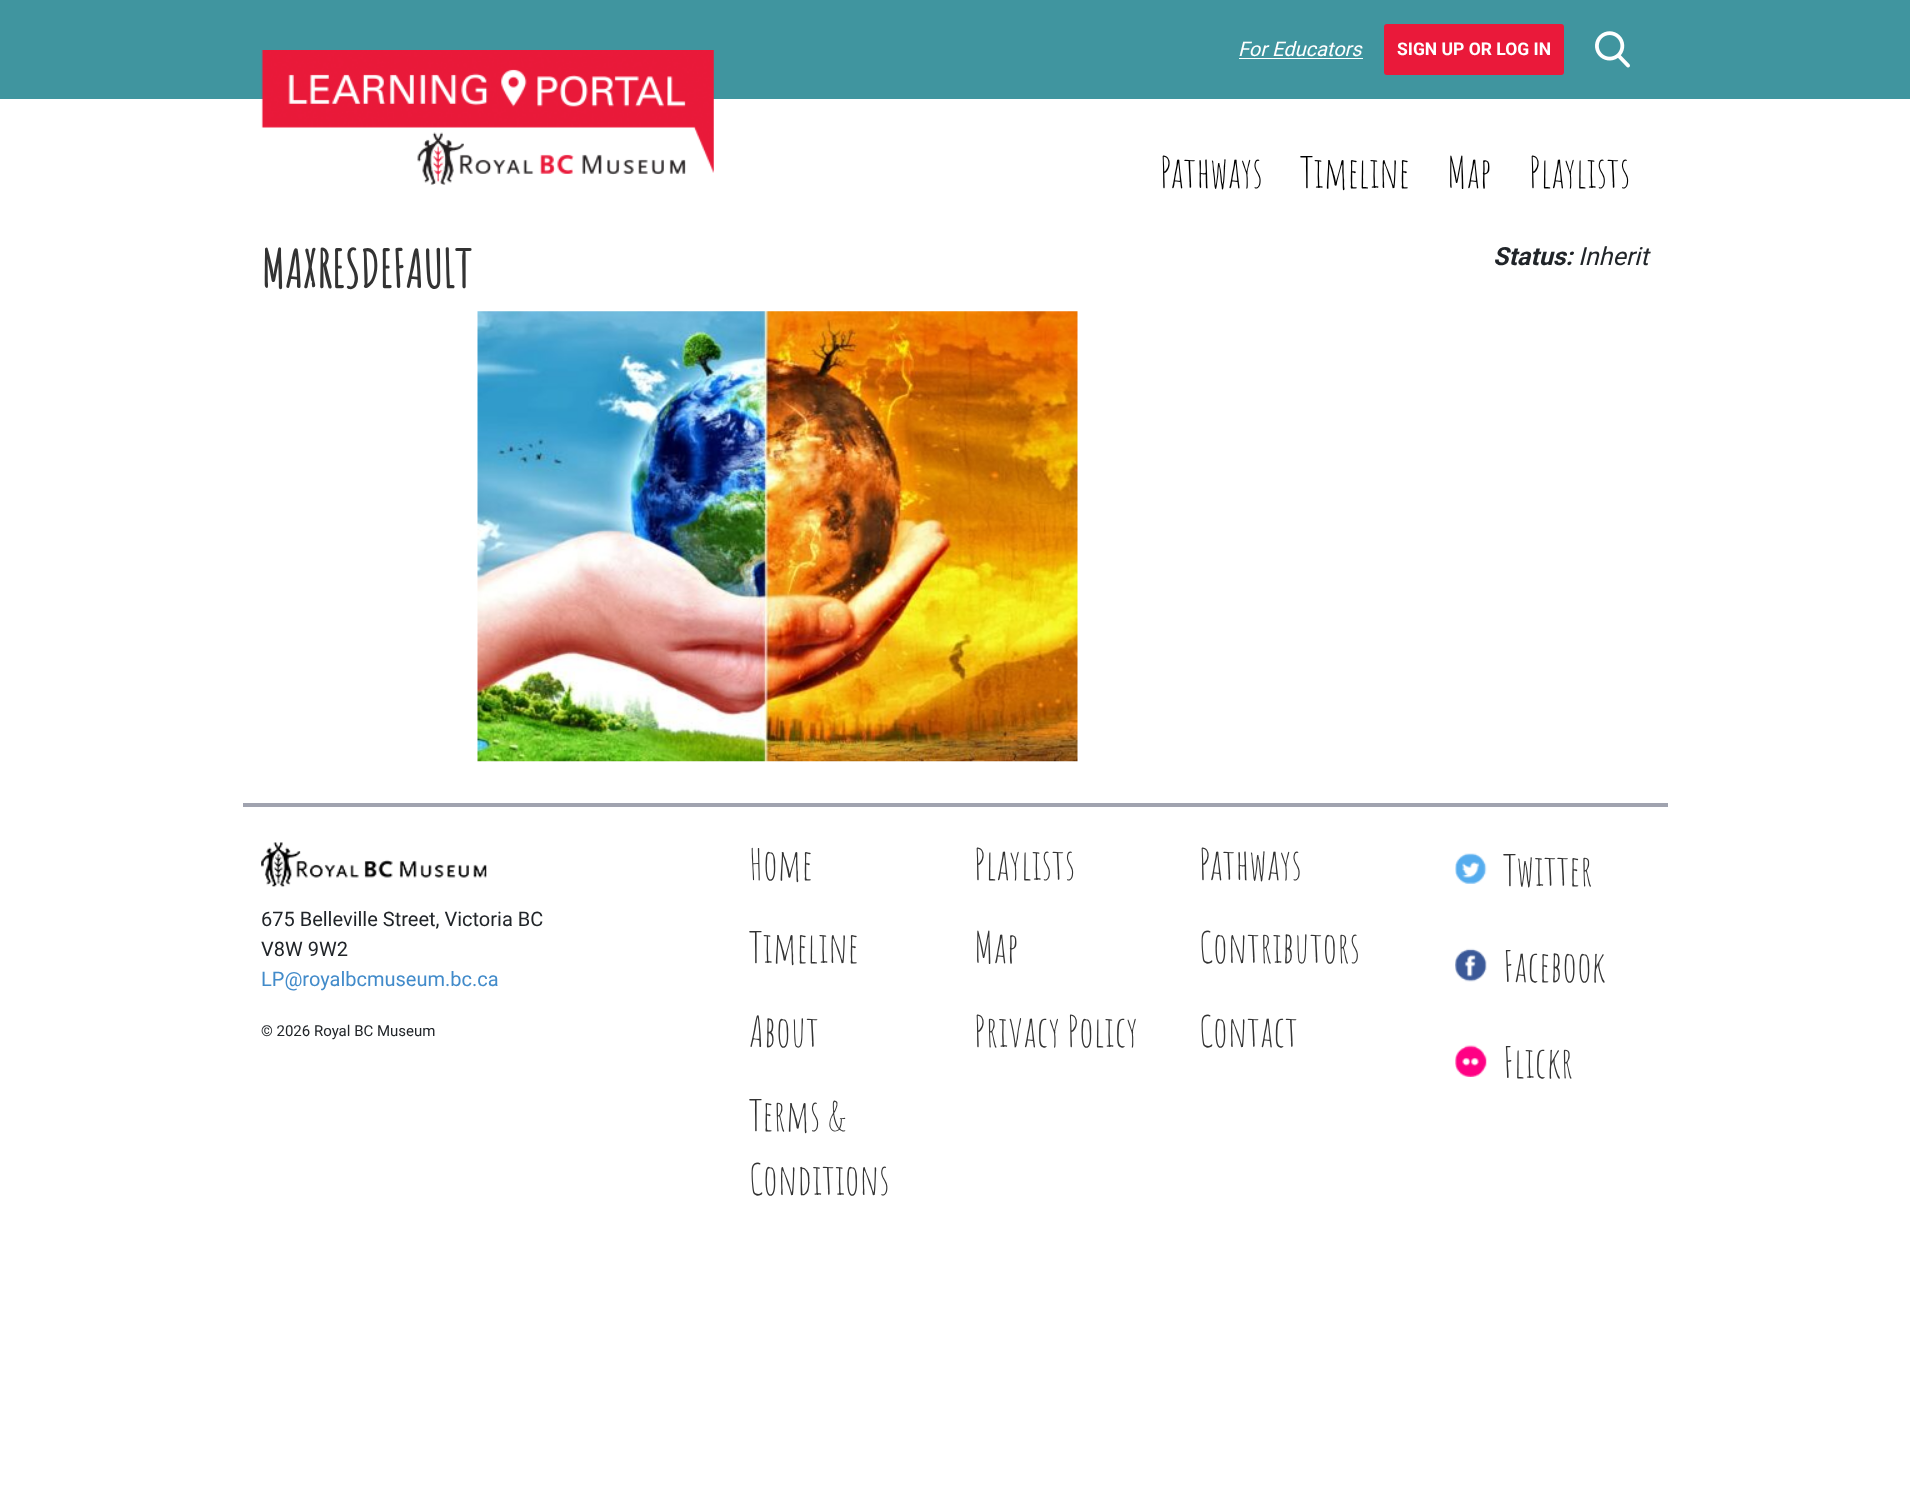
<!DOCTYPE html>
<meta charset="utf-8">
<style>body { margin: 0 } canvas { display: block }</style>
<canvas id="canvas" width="1910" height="1512"></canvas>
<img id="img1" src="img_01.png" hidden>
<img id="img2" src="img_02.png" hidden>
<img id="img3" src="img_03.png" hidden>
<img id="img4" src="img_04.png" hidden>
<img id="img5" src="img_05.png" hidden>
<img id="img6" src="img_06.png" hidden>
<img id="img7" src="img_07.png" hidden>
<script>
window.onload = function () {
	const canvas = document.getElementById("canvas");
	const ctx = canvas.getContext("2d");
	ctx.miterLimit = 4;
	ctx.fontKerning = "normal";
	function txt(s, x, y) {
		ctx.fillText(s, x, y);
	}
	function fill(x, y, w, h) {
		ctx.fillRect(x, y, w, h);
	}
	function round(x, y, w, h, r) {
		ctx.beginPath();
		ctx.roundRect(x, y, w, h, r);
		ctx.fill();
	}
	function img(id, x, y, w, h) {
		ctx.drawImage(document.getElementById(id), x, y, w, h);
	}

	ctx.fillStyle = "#FFFFFF";
	fill(0, 0, 1910, 1512);
	ctx.fillStyle = "#40959F";
	fill(0, 0, 1910, 99);
	img("img1", 261, 50, 453, 135);
	ctx.fillStyle = "#FFFFFF";
	fill(1239, 58, 124, 1);
	ctx.fillStyle = "#EA193A";
	round(1384, 24, 180, 51, 3);
	img("img2", 1595, 31, 35, 37);
	img("img3", 477, 311, 601, 451);
	ctx.fillStyle = "#A0A3AF";
	fill(243, 803, 1425, 4);
	img("img4", 261, 842, 226, 45);
	img("img5", 1455, 853, 32, 31);
	img("img6", 1455, 948, 32, 34);
	img("img7", 1455, 1045, 32, 32);
	ctx.font = "italic 20px Roboto";
	ctx.fillStyle = "#FFFFFF";
	txt("For Educators", 1238, 56);
	ctx.font = "bold 17.5px Roboto";
	txt("SIGN UP OR LOG IN", 1397, 55);
	ctx.font = "42.5px Amatic SC";
	ctx.fillStyle = "#000000";
	txt("Pathways", 1160, 188);
	txt("Timeline", 1300, 188);
	txt("Map", 1447, 188);
	txt("Playlists", 1529, 188);
	ctx.font = "bold 51.25px Amatic SC";
	ctx.fillStyle = "#333333";
	txt("MAXRESDEFAULT", 261, 288);
	ctx.font = "italic bold 25px Roboto";
	ctx.fillStyle = "#212529";
	txt("Status:", 1493, 265);
	ctx.font = "italic 25px Roboto";
	txt("Inherit", 1578, 265);
	ctx.font = "20px Roboto";
	txt("675 Belleville Street, Victoria BC", 261, 926);
	txt("V8W 9W2", 261, 956);
	ctx.fillStyle = "#428BCA";
	txt("LP@royalbcmuseum.bc.ca", 261, 986);
	ctx.font = "15px Roboto";
	ctx.fillStyle = "#212529";
	txt("© 2026 Royal BC Museum", 261, 1036);
	ctx.font = "42.5px Amatic SC";
	ctx.fillStyle = "#333333";
	txt("Home", 749, 880);
	txt("Playlists", 974, 880);
	txt("Pathways", 1199, 880);
	txt("Timeline", 749, 963);
	txt("Map", 974, 963);
	txt("Contributors", 1199, 963);
	txt("About", 749, 1047);
	txt("Privacy Policy", 974, 1047);
	txt("Contact", 1199, 1047);
	txt("Terms &", 749, 1131);
	txt("Conditions", 749, 1195);
	txt("Twitter", 1503, 886);
	txt("Facebook", 1503, 982);
	txt("Flickr", 1503, 1078);
};
</script>
